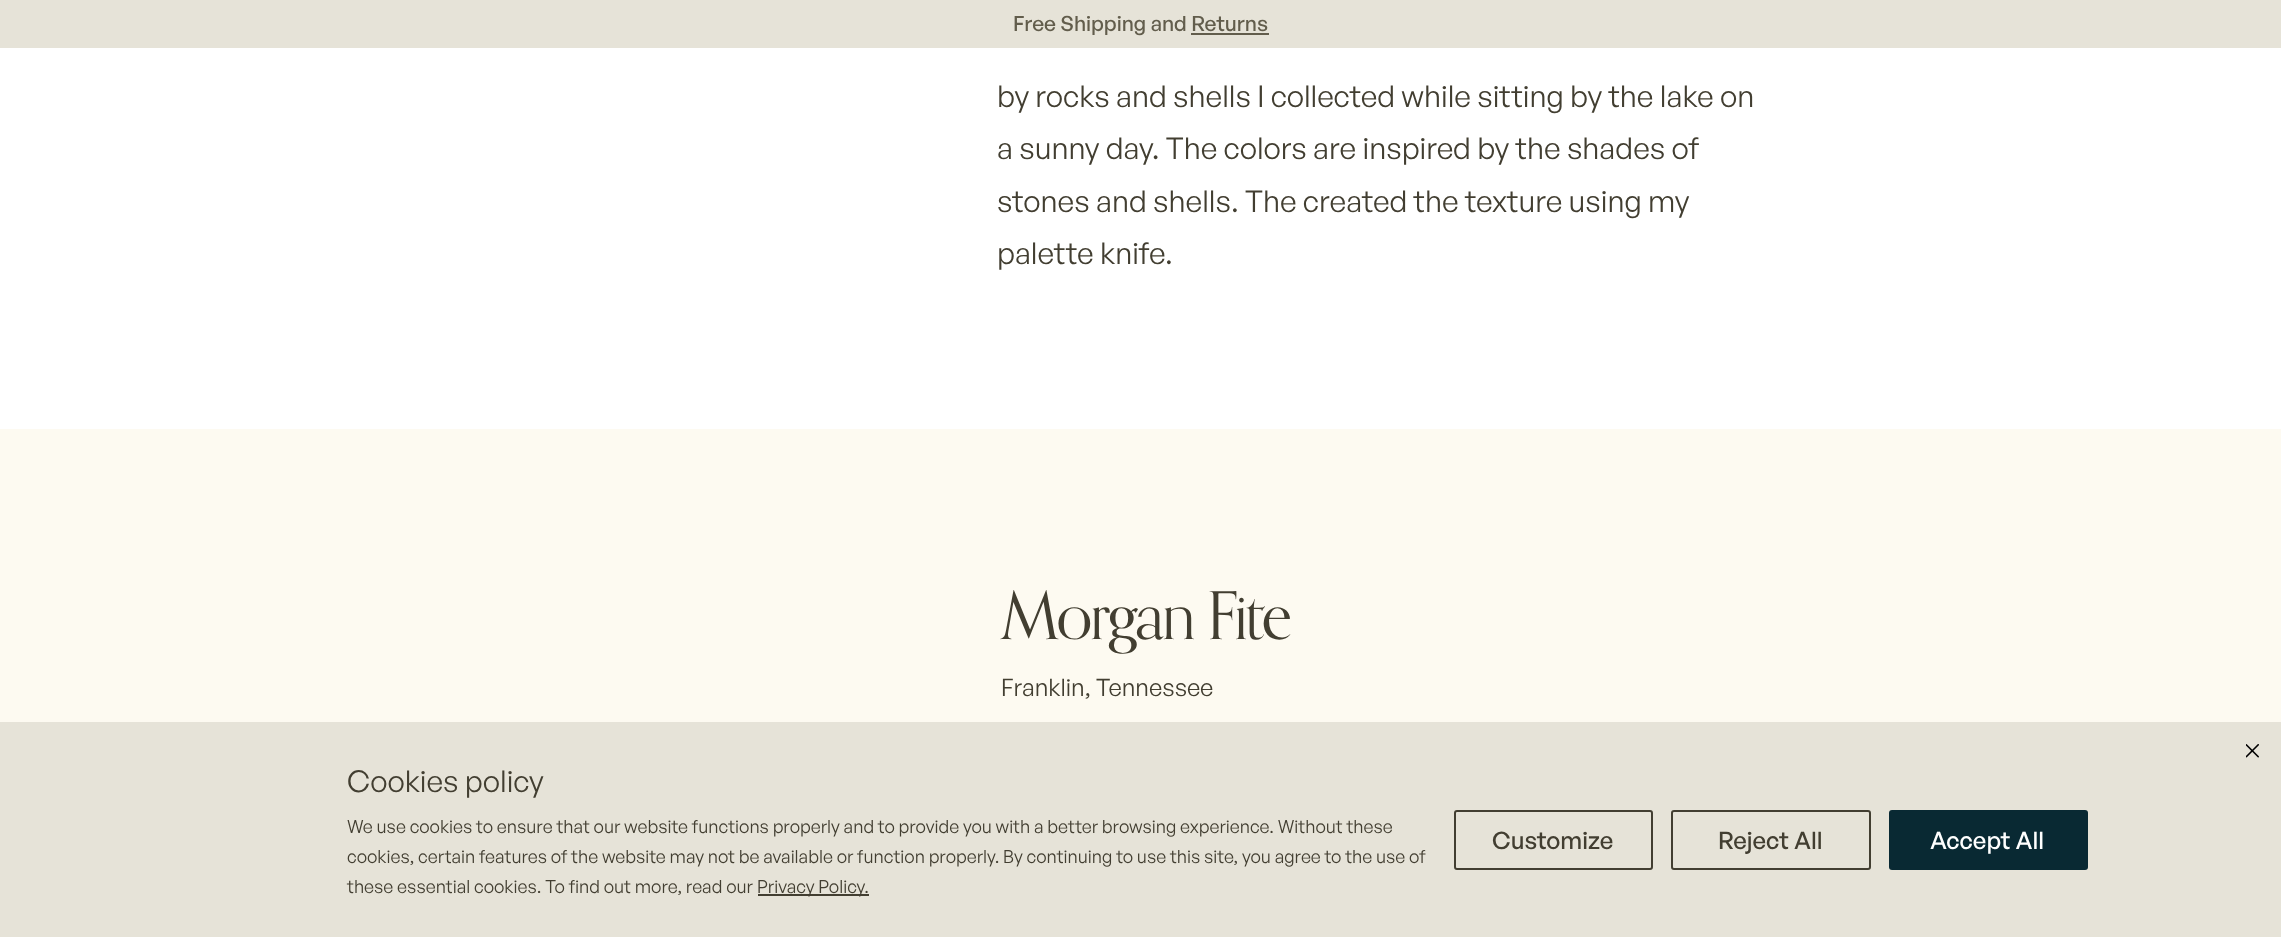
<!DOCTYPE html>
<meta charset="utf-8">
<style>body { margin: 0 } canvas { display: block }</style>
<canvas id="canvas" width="2281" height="937"></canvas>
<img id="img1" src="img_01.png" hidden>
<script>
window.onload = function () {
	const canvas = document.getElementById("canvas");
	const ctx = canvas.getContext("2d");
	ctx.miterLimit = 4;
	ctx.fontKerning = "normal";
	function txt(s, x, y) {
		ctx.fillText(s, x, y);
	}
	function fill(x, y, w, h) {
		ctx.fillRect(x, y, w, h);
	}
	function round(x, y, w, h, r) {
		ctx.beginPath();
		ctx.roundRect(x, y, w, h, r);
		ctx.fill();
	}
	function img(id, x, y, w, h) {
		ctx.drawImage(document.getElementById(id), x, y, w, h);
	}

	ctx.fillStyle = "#FFFFFF";
	fill(0, 0, 2281, 937);
	ctx.fillStyle = "#E6E3D8";
	fill(0, 0, 2281, 48);
	ctx.fillStyle = "#625D4C";
	fill(1191, 33, 78, 2);
	ctx.fillStyle = "#FDFAF1";
	fill(0, 429, 2281, 293);
	ctx.fillStyle = "#E6E3D8";
	fill(0, 722, 2281, 215);
	img("img1", 2246, 744, 13, 14);
	ctx.fillStyle = "#423E31";
	fill(758, 894, 111, 2);
	ctx.beginPath();
	ctx.roundRect(1455, 811, 197, 58, 2);
	ctx.strokeStyle = "#423E31";
	ctx.lineWidth = 2;
	ctx.stroke();
	ctx.beginPath();
	ctx.roundRect(1672, 811, 198, 58, 2);
	ctx.stroke();
	ctx.fillStyle = "#092933";
	round(1889, 810, 199, 60, 3);
	ctx.font = "500 21px General Sans";
	ctx.fillStyle = "#625D4C";
	txt("Free Shipping and Returns", 1013, 31);
	ctx.font = "30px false";
	ctx.fillStyle = "#423E31";
	txt("by rocks and shells I collected while sitting by the lake on", 997, 107);
	txt("a sunny day. The colors are inspired by the shades of", 997, 159);
	txt("stones and shells. The created the texture using my", 997, 212);
	txt("palette knife.", 997, 264);
	ctx.letterSpacing = "-2.6px";
	ctx.font = "66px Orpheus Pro";
	txt("Morgan Fite", 1001, 639);
	ctx.letterSpacing = "0px";
	ctx.font = "24px false";
	txt("Franklin, Tennessee", 1001, 696);
	ctx.font = "30px false";
	txt("Cookies policy", 347, 792);
	ctx.font = "18px false";
	txt("We use cookies to ensure that our website functions properly and to provide you with a better browsing experience. Without these", 347, 833);
	txt("cookies, certain features of the website may not be available or function properly. By continuing to use this site, you agree to the use of", 347, 863);
	txt("these essential cookies. To find out more, read our", 347, 893);
	txt("Privacy Policy.", 757, 893);
	ctx.font = "500 24px General Sans";
	txt("Customize", 1492, 849);
	txt("Reject All", 1718, 849);
	ctx.fillStyle = "#FFFFFF";
	txt("Accept All", 1930, 849);
};
</script>
